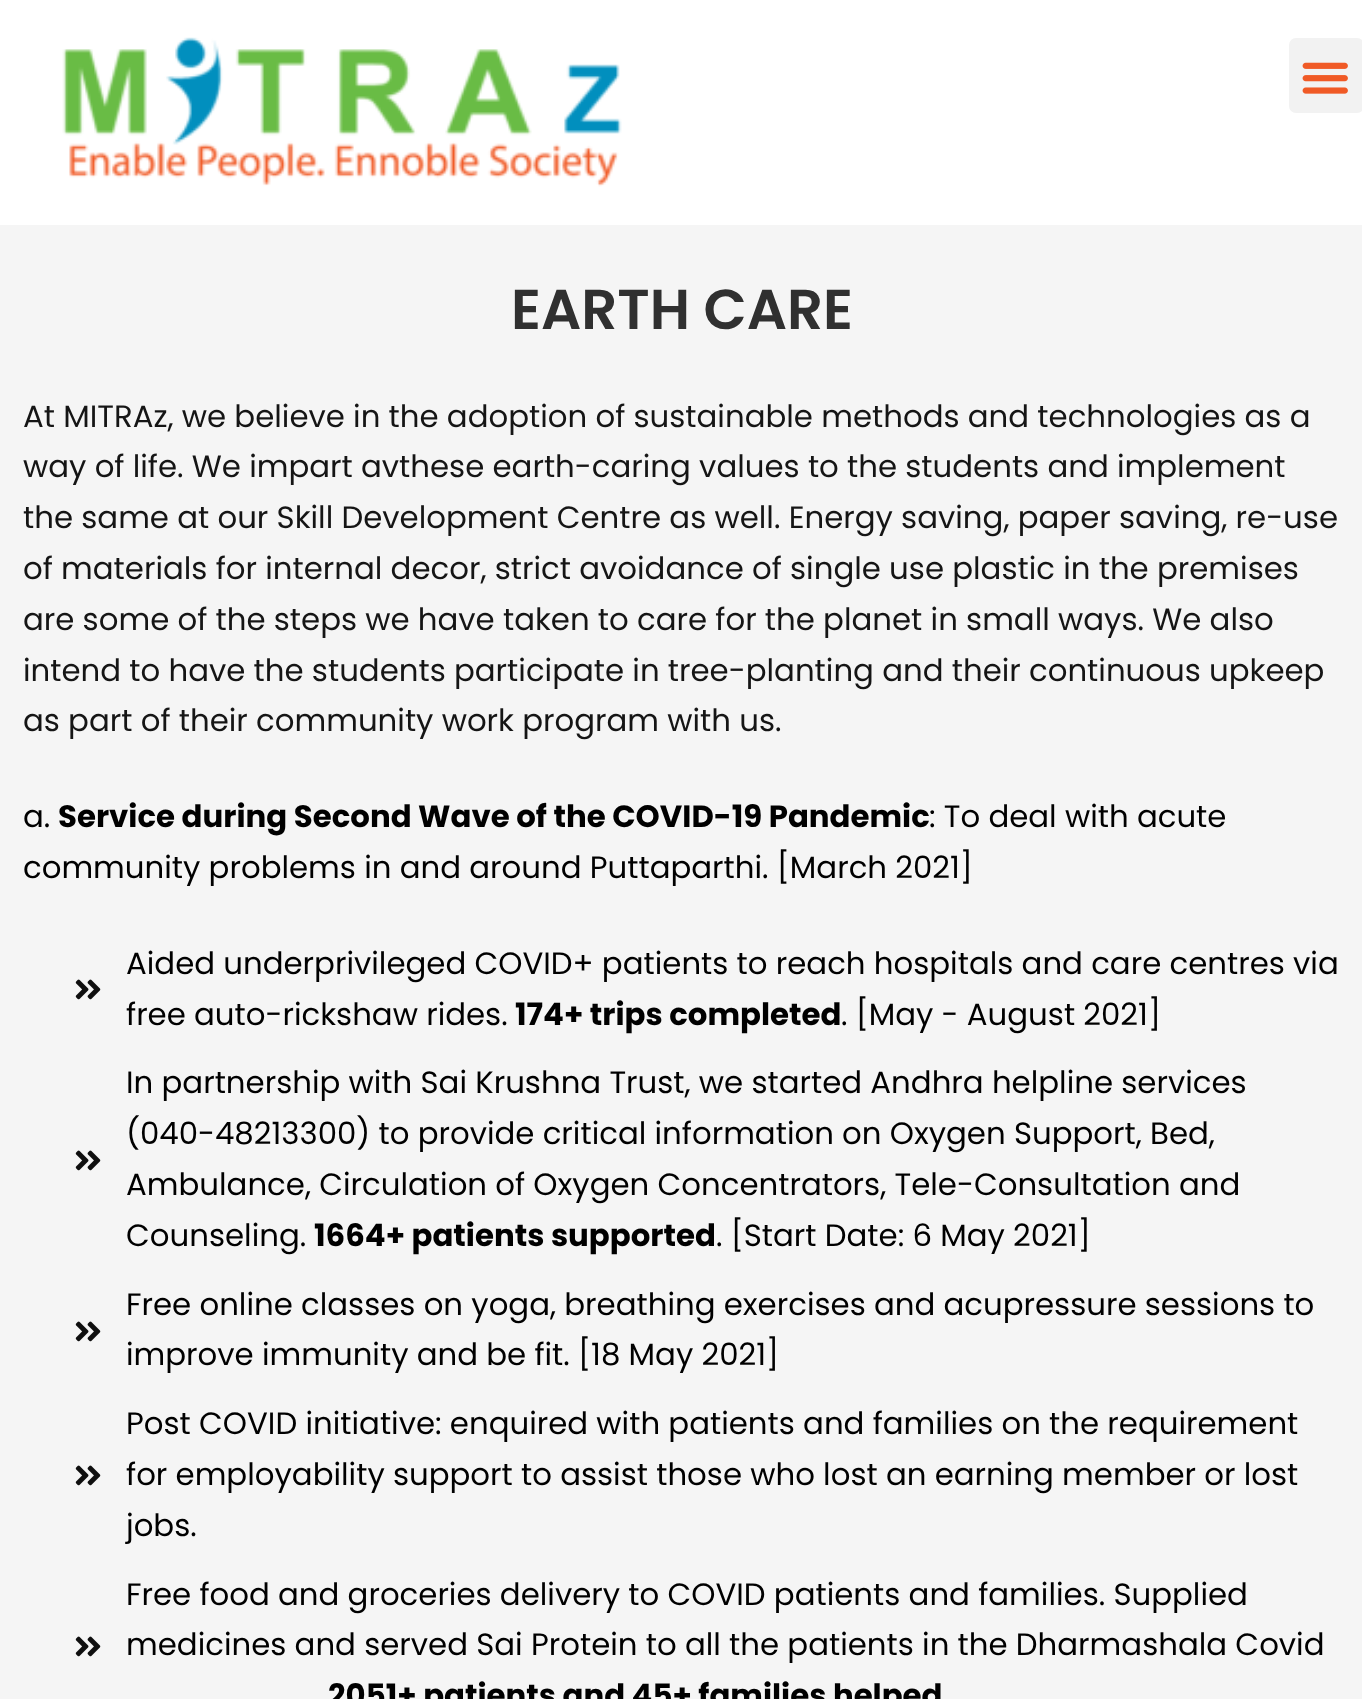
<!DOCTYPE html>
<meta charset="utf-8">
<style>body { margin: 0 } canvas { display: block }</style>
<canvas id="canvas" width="1362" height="1699"></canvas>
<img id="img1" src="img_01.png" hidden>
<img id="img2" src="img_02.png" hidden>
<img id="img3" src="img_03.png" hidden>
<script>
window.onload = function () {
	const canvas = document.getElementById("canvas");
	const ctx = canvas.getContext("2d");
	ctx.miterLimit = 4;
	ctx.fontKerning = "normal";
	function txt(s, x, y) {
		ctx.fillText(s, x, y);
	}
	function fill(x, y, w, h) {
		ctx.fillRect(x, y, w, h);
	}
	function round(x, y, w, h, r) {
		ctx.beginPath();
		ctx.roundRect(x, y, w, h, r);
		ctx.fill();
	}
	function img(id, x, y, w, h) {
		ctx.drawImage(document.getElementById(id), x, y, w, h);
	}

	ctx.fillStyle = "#F5F5F5";
	fill(0, 0, 1362, 1699);
	ctx.fillStyle = "#FFFFFF";
	fill(0, 0, 1362, 225);
	img("img1", 62, 37, 560, 150);
	ctx.fillStyle = "#F2F2F2";
	round(1289, 38, 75, 75, 7);
	img("img2", 1302, 62, 46, 32);
	img("img3", 75, 979, 26, 21);
	img("img3", 75, 1150, 26, 21);
	img("img3", 75, 1321, 26, 21);
	img("img3", 75, 1465, 26, 21);
	img("img3", 75, 1636, 26, 21);
	ctx.font = "600 56.25px Poppins";
	ctx.fillStyle = "#303030";
	txt("EARTH CARE", 511, 329);
	ctx.font = "30.8px Poppins";
	ctx.fillStyle = "#151515";
	txt("At MITRAz, we believe in the adoption of sustainable methods and technologies as a", 23, 427);
	txt("way of life. We impart avthese earth-caring values to the students and implement", 23, 477);
	txt("the same at our Skill Development Centre as well. Energy saving, paper saving, re-use", 23, 528);
	txt("of materials for internal decor, strict avoidance of single use plastic in the premises", 23, 579);
	txt("are some of the steps we have taken to care for the planet in small ways. We also", 23, 630);
	txt("intend to have the students participate in tree-planting and their continuous upkeep", 23, 681);
	txt("as part of their community work program with us.", 23, 731);
	ctx.fillStyle = "#000000";
	txt("a.", 23, 827);
	ctx.font = "bold 30.8px Poppins";
	txt("Service during Second Wave of the COVID-19 Pandemic", 58, 827);
	ctx.font = "30.8px Poppins";
	txt(": To deal with acute", 929, 827);
	txt("community problems in and around Puttaparthi. [March 2021]", 23, 878);
	txt("Aided underprivileged COVID+ patients to reach hospitals and care centres via", 126, 974);
	txt("free auto-rickshaw rides.", 126, 1025);
	ctx.font = "bold 30.8px Poppins";
	txt("174+ trips completed", 515, 1025);
	ctx.font = "30.8px Poppins";
	txt(". [May - August 2021]", 841, 1025);
	txt("In partnership with Sai Krushna Trust, we started Andhra helpline services", 126, 1093);
	txt("(040-48213300) to provide critical information on Oxygen Support, Bed,", 126, 1144);
	txt("Ambulance, Circulation of Oxygen Concentrators, Tele-Consultation and", 126, 1195);
	txt("Counseling.", 126, 1246);
	ctx.font = "bold 30.8px Poppins";
	txt("1664+ patients supported", 314, 1246);
	ctx.font = "30.8px Poppins";
	txt(". [Start Date: 6 May 2021]", 716, 1246);
	txt("Free online classes on yoga, breathing exercises and acupressure sessions to", 126, 1315);
	txt("improve immunity and be fit. [18 May 2021]", 126, 1365);
	txt("Post COVID initiative: enquired with patients and families on the requirement", 126, 1434);
	txt("for employability support to assist those who lost an earning member or lost", 126, 1485);
	txt("jobs.", 126, 1536);
	txt("Free food and groceries delivery to COVID patients and families. Supplied", 126, 1605);
	txt("medicines and served Sai Protein to all the patients in the Dharmashala Covid", 126, 1655);
	ctx.font = "bold 30.8px Poppins";
	txt("2051+ patients and 45+ families helped", 328, 1706);
};
</script>
